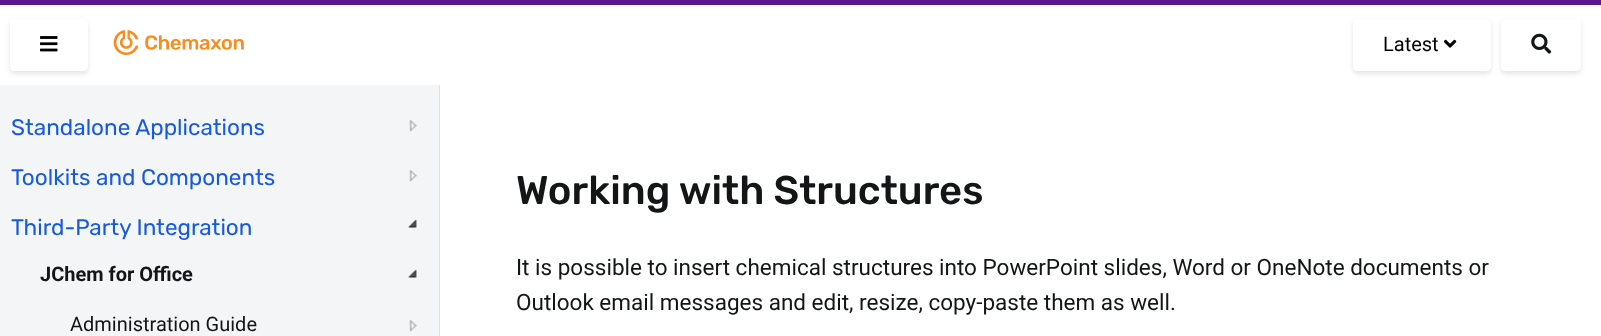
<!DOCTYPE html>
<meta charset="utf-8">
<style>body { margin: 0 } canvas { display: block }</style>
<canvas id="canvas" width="1601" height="336"></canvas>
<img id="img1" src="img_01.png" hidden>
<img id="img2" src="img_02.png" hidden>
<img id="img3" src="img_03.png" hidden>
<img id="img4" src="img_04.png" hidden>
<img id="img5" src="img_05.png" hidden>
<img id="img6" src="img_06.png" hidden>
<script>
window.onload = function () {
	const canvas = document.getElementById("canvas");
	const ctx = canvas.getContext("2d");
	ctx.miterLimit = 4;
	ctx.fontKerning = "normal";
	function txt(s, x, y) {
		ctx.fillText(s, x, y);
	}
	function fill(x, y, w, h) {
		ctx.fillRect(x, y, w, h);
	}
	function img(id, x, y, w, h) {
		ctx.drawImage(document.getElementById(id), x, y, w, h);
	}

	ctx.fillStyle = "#FFFFFF";
	fill(0, 0, 1601, 336);
	ctx.fillStyle = "#5A1788";
	fill(0, 0, 1601, 5);
	ctx.fillStyle = "#DAE1E7";
	fill(439, 80, 1, 256);
	ctx.fillStyle = "#FFFFFF";
	fill(439, 80, 1, 5);
	ctx.save();
	ctx.beginPath();
	ctx.moveTo(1, 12);
	ctx.lineTo(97, 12);
	ctx.lineTo(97, 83);
	ctx.lineTo(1, 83);
	ctx.closePath();
	ctx.moveTo(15, 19);
	ctx.lineTo(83, 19);
	ctx.bezierCurveTo(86, 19, 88, 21, 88, 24);
	ctx.lineTo(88, 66);
	ctx.bezierCurveTo(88, 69, 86, 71, 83, 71);
	ctx.lineTo(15, 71);
	ctx.bezierCurveTo(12, 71, 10, 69, 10, 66);
	ctx.lineTo(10, 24);
	ctx.bezierCurveTo(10, 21, 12, 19, 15, 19);
	ctx.closePath();
	ctx.clip("evenodd");
	ctx.fillStyle = "rgba(0, 0, 0, 0.1)";
	ctx.filter = "blur(2.5px)";
	ctx.beginPath();
	ctx.roundRect(10, 21, 78, 53, 5);
	ctx.fill();
	ctx.filter = "none";
	ctx.restore();
	img("img1", 40, 36, 18, 16);
	img("img2", 113, 30, 131, 25);
	ctx.save();
	ctx.beginPath();
	ctx.moveTo(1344, 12);
	ctx.lineTo(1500, 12);
	ctx.lineTo(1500, 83);
	ctx.lineTo(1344, 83);
	ctx.closePath();
	ctx.moveTo(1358, 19);
	ctx.lineTo(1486, 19);
	ctx.bezierCurveTo(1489, 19, 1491, 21, 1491, 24);
	ctx.lineTo(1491, 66);
	ctx.bezierCurveTo(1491, 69, 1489, 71, 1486, 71);
	ctx.lineTo(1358, 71);
	ctx.bezierCurveTo(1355, 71, 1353, 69, 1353, 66);
	ctx.lineTo(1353, 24);
	ctx.bezierCurveTo(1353, 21, 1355, 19, 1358, 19);
	ctx.closePath();
	ctx.clip("evenodd");
	ctx.fillStyle = "rgba(0, 0, 0, 0.1)";
	ctx.filter = "blur(2.5px)";
	ctx.beginPath();
	ctx.roundRect(1353, 21, 138, 53, 5);
	ctx.fill();
	ctx.filter = "none";
	ctx.restore();
	img("img3", 1443, 39, 14, 9);
	ctx.save();
	ctx.beginPath();
	ctx.moveTo(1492, 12);
	ctx.lineTo(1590, 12);
	ctx.lineTo(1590, 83);
	ctx.lineTo(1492, 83);
	ctx.closePath();
	ctx.moveTo(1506, 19);
	ctx.lineTo(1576, 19);
	ctx.bezierCurveTo(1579, 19, 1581, 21, 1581, 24);
	ctx.lineTo(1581, 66);
	ctx.bezierCurveTo(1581, 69, 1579, 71, 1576, 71);
	ctx.lineTo(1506, 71);
	ctx.bezierCurveTo(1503, 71, 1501, 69, 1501, 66);
	ctx.lineTo(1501, 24);
	ctx.bezierCurveTo(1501, 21, 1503, 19, 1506, 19);
	ctx.closePath();
	ctx.clip("evenodd");
	ctx.fillStyle = "rgba(0, 0, 0, 0.1)";
	ctx.filter = "blur(2.5px)";
	ctx.beginPath();
	ctx.roundRect(1501, 21, 80, 53, 5);
	ctx.fill();
	ctx.filter = "none";
	ctx.restore();
	img("img4", 1531, 33, 21, 21);
	ctx.fillStyle = "#F4F5F7";
	fill(0, 85, 439, 251);
	img("img5", 409, 120, 8, 12);
	img("img5", 409, 170, 8, 12);
	img("img6", 408, 219, 9, 9);
	img("img6", 408, 269, 9, 9);
	img("img5", 409, 320, 8, 12);
	ctx.font = "20px Roboto";
	ctx.fillStyle = "#000000";
	txt("Latest", 1383, 51);
	ctx.font = "22.5px Rubik";
	ctx.fillStyle = "#185ADD";
	txt("Standalone Applications", 11, 135);
	txt("Toolkits and Components", 11, 185);
	txt("Third-Party Integration", 11, 235);
	ctx.font = "bold 20px Roboto";
	ctx.fillStyle = "#131517";
	txt("JChem for Office", 40, 281);
	ctx.font = "20px Roboto";
	txt("Administration Guide", 70, 331);
	ctx.font = "500 40px Rubik";
	txt("Working with Structures", 516, 204);
	ctx.font = "22.5px Roboto";
	txt("It is possible to insert chemical structures into PowerPoint slides, Word or OneNote documents or", 516, 275);
	txt("Outlook email messages and edit, resize, copy-paste them as well.", 516, 310);
};
</script>
